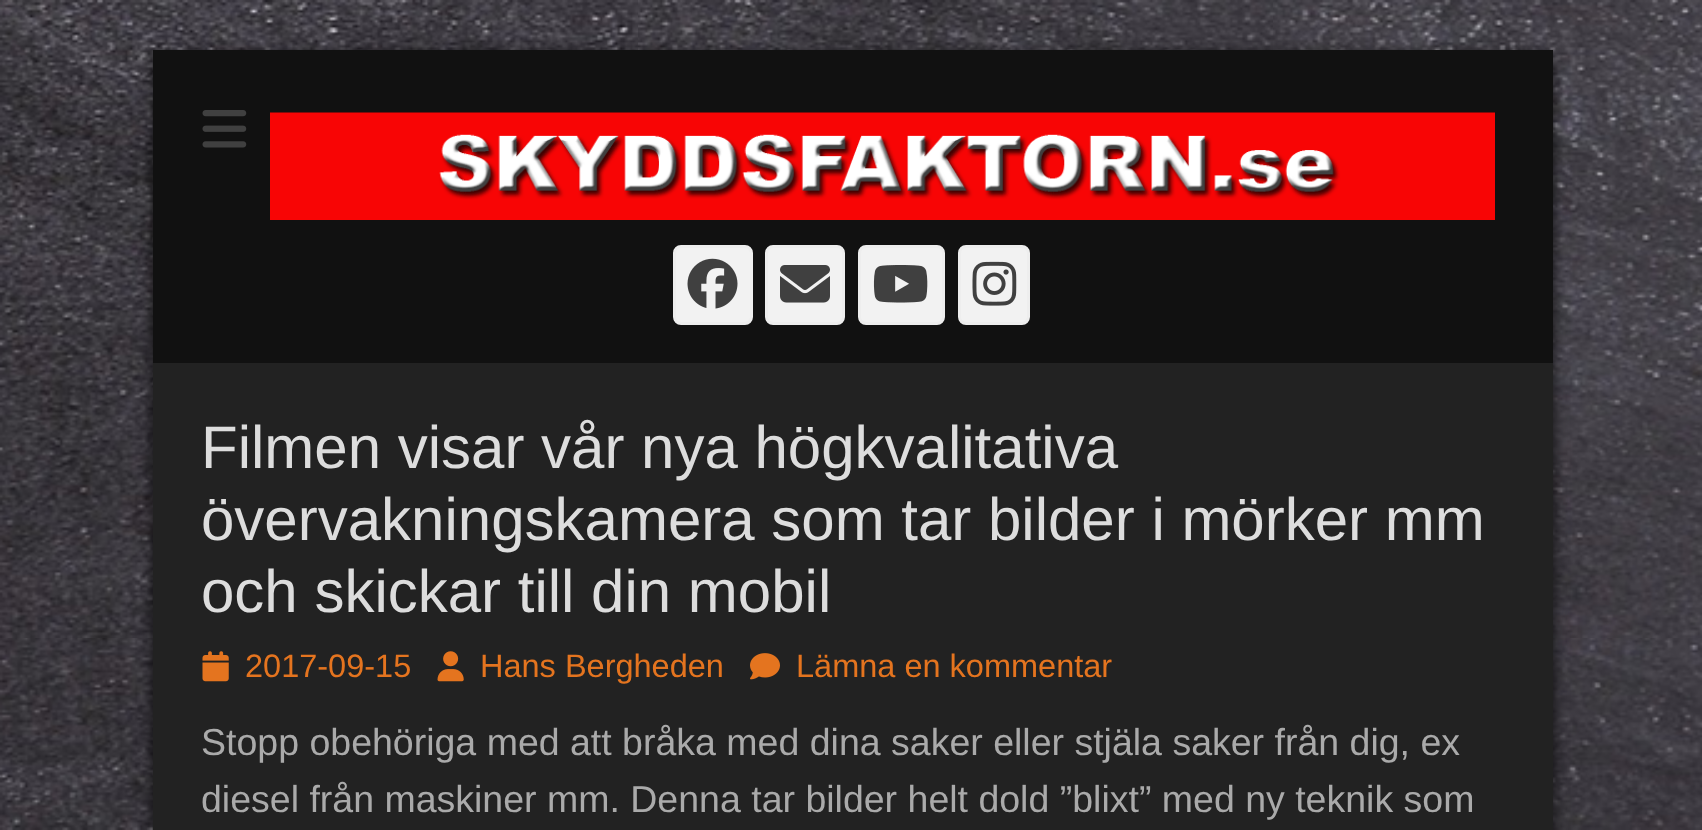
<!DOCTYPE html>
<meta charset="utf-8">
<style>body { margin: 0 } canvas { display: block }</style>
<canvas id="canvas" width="1702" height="830"></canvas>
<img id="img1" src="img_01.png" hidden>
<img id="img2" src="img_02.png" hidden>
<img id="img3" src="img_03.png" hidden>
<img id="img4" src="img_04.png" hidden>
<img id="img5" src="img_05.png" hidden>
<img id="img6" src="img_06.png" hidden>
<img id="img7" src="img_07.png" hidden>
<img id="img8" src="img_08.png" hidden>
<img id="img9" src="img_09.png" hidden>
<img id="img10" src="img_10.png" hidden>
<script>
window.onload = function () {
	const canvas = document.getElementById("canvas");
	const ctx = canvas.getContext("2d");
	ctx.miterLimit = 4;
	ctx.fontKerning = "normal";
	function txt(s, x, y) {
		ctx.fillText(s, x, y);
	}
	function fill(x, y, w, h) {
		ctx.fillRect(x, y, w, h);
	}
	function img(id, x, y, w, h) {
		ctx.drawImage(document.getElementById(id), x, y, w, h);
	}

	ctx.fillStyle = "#FFFFFF";
	fill(0, 0, 1702, 830);
	img("img1", 0, 0, 1702, 830);
	ctx.fillStyle = "rgba(0, 0, 0, 0.8)";
	ctx.filter = "blur(7.5px)";
	ctx.beginPath();
	ctx.roundRect(153, 55, 1400, 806, 8);
	ctx.fill();
	ctx.filter = "none";
	ctx.fillStyle = "#222222";
	fill(153, 363, 1400, 467);
	ctx.fillStyle = "#111111";
	fill(153, 50, 1400, 313);
	img("img2", 202, 110, 45, 38);
	img("img3", 270, 112, 1225, 108);
	ctx.fillStyle = "#F2F2F2";
	ctx.beginPath();
	ctx.roundRect(674.5, 246.5, 77, 77, 6.5);
	ctx.fill();
	ctx.strokeStyle = "#EEEEEE";
	ctx.lineWidth = 3;
	ctx.stroke();
	img("img4", 687, 258, 51, 51);
	ctx.beginPath();
	ctx.roundRect(766.5, 246.5, 77, 77, 6.5);
	ctx.fill();
	ctx.stroke();
	img("img5", 780, 265, 50, 38);
	ctx.beginPath();
	ctx.roundRect(859.5, 246.5, 84, 77, 6.5);
	ctx.fill();
	ctx.stroke();
	img("img6", 873, 265, 55, 38);
	ctx.beginPath();
	ctx.roundRect(959.5, 246.5, 69, 77, 6.5);
	ctx.fill();
	ctx.stroke();
	img("img7", 972, 261, 45, 45);
	img("img8", 202, 651, 27, 31);
	img("img9", 437, 651, 27, 31);
	img("img10", 750, 653, 30, 27);
	ctx.font = "60px Liberation Sans";
	ctx.fillStyle = "#DDDDDD";
	txt("Filmen visar vår nya högkvalitativa", 201, 468);
	txt("övervakningskamera som tar bilder i mörker mm", 201, 540);
	txt("och skickar till din mobil", 201, 612);
	ctx.font = "32.5px Liberation Sans";
	ctx.fillStyle = "#E4741F";
	txt("2017-09-15", 245, 677);
	txt("Hans Bergheden", 480, 677);
	txt("Lämna en kommentar", 796, 677);
	ctx.font = "37.5px Liberation Sans";
	ctx.fillStyle = "#AAAAAA";
	txt("Stopp obehöriga med att bråka med dina saker eller stjäla saker från dig, ex", 201, 755);
	txt("diesel från maskiner mm. Denna tar bilder helt dold ”blixt” med ny teknik som", 201, 812);
};
</script>
